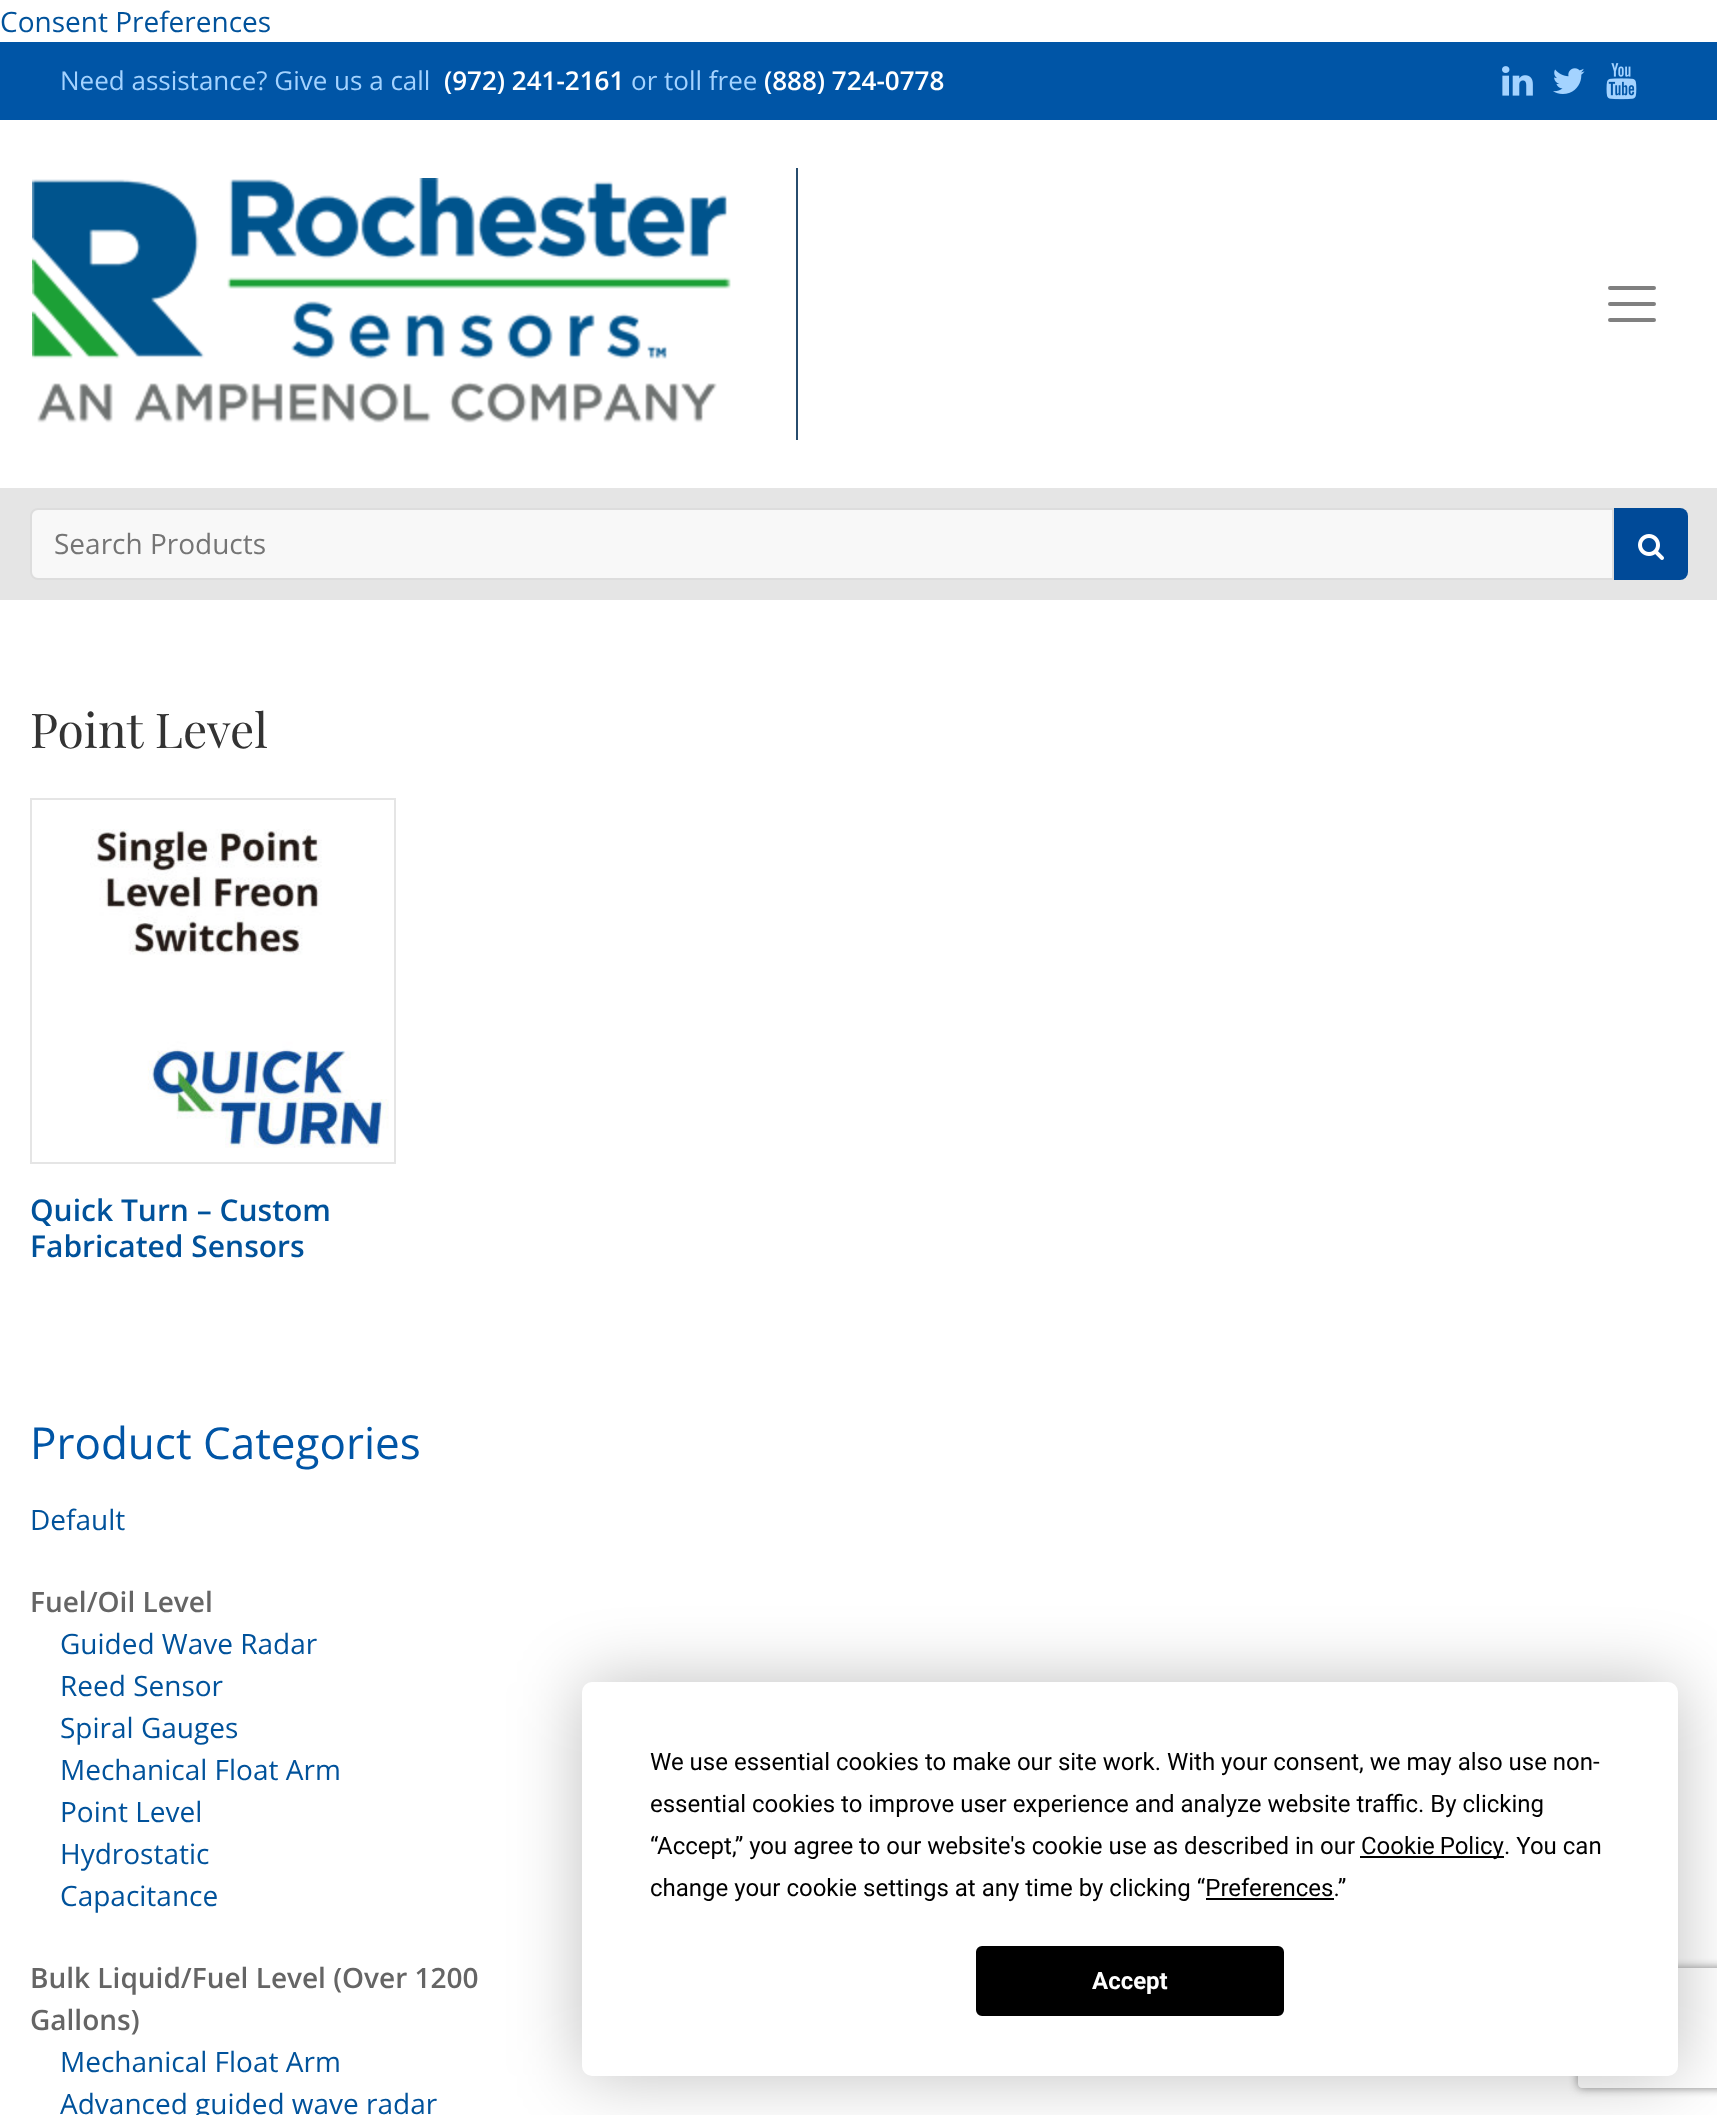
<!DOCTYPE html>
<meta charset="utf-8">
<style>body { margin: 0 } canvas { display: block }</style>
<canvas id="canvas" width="1717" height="2115"></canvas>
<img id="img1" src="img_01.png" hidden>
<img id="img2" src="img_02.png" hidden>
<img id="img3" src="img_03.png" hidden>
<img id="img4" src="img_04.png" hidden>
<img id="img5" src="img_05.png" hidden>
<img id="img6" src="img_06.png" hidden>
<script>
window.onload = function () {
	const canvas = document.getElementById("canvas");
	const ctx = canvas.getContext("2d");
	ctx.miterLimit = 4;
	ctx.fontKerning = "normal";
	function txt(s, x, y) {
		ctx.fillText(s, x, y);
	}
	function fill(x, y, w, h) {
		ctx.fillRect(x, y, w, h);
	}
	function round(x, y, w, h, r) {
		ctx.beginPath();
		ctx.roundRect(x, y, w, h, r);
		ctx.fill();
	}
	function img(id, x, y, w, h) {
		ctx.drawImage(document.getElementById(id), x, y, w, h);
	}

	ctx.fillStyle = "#FFFFFF";
	fill(0, 0, 1717, 2115);
	ctx.fillStyle = "#0055A6";
	fill(0, 42, 1717, 78);
	img("img1", 1502, 66, 31, 30);
	img("img2", 1553, 68, 32, 26);
	img("img3", 1606, 63, 31, 37);
	ctx.fillStyle = "#274C6D";
	fill(796, 168, 2, 272);
	img("img4", 32, 178, 699, 245);
	ctx.beginPath();
	ctx.moveTo(1610, 288);
	ctx.lineTo(1654, 288);
	ctx.moveTo(1610, 304);
	ctx.lineTo(1654, 304);
	ctx.moveTo(1610, 320);
	ctx.lineTo(1654, 320);
	ctx.strokeStyle = "#808080";
	ctx.lineWidth = 4;
	ctx.lineCap = "round";
	ctx.stroke();
	ctx.fillStyle = "#E5E5E5";
	fill(0, 488, 1717, 112);
	ctx.fillStyle = "#F8F8F8";
	ctx.beginPath();
	ctx.roundRect(31, 509, 1582, 70, [7, 0, 0, 7]);
	ctx.fill();
	ctx.strokeStyle = "#DDDDDD";
	ctx.lineWidth = 2;
	ctx.stroke();
	ctx.fillStyle = "#004A98";
	ctx.beginPath();
	ctx.roundRect(1614, 508, 74, 72, [0, 8, 8, 0]);
	ctx.fill();
	img("img5", 1638, 534, 26, 26);
	ctx.strokeStyle = "#E5E5E5";
	ctx.strokeRect(31, 799, 364, 364);
	img("img6", 90, 829, 299, 319);
	ctx.fillStyle = "rgba(0, 0, 0, 0.25)";
	ctx.filter = "blur(35px)";
	ctx.beginPath();
	ctx.roundRect(582, 1682, 1096, 394, 10);
	ctx.fill();
	ctx.filter = "none";
	ctx.save();
	ctx.beginPath();
	ctx.moveTo(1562, 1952);
	ctx.lineTo(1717, 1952);
	ctx.lineTo(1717, 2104);
	ctx.lineTo(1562, 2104);
	ctx.closePath();
	ctx.moveTo(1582, 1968);
	ctx.lineTo(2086, 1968);
	ctx.bezierCurveTo(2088, 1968, 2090, 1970, 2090, 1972);
	ctx.lineTo(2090, 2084);
	ctx.bezierCurveTo(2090, 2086, 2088, 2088, 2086, 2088);
	ctx.lineTo(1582, 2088);
	ctx.bezierCurveTo(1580, 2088, 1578, 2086, 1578, 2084);
	ctx.lineTo(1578, 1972);
	ctx.bezierCurveTo(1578, 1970, 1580, 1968, 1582, 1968);
	ctx.closePath();
	ctx.clip("evenodd");
	ctx.fillStyle = "#808080";
	ctx.filter = "blur(5px)";
	ctx.beginPath();
	ctx.roundRect(1578, 1968, 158, 120, 4);
	ctx.fill();
	ctx.filter = "none";
	ctx.restore();
	ctx.fillStyle = "#FFFFFF";
	round(582, 1682, 1096, 394, 10);
	ctx.fillStyle = "#000000";
	fill(1360, 1856, 144, 2);
	fill(1206, 1898, 128, 2);
	ctx.beginPath();
	ctx.roundRect(977, 1947, 306, 68, 5);
	ctx.fill();
	ctx.strokeStyle = "#000000";
	ctx.stroke();
	ctx.font = "28px Open Sans";
	ctx.fillStyle = "#00529B";
	txt("Consent Preferences", 0, 32);
	ctx.font = "26px Open Sans";
	ctx.fillStyle = "#A4D3FF";
	txt("Need assistance? Give us a call", 60, 90);
	ctx.font = "600 26px Open Sans";
	ctx.fillStyle = "#FFFFFF";
	txt("(972) 241-2161", 444, 90);
	ctx.font = "26px Open Sans";
	ctx.fillStyle = "#A4D3FF";
	txt("or toll free", 631, 90);
	ctx.font = "600 26px Open Sans";
	ctx.fillStyle = "#FFFFFF";
	txt("(888) 724-0778", 764, 90);
	ctx.font = "28px Open Sans";
	ctx.fillStyle = "#757575";
	txt("Search Products", 54, 554);
	ctx.font = "48px Playfair Display";
	ctx.fillStyle = "#333333";
	txt("Point Level", 30, 748);
	ctx.font = "600 30px Open Sans";
	ctx.fillStyle = "#00529B";
	txt("Quick Turn – Custom", 30, 1221);
	txt("Fabricated Sensors", 30, 1257);
	ctx.font = "44px Open Sans";
	ctx.fillStyle = "#0055A6";
	txt("Product Categories", 30, 1459);
	ctx.font = "28px Open Sans";
	ctx.fillStyle = "#00529B";
	txt("Default", 30, 1530);
	ctx.font = "600 28px Open Sans";
	ctx.fillStyle = "#656565";
	txt("Fuel/Oil Level", 30, 1612);
	ctx.font = "28px Open Sans";
	ctx.fillStyle = "#00529B";
	txt("Guided Wave Radar", 60, 1654);
	txt("Reed Sensor", 60, 1696);
	txt("Spiral Gauges", 60, 1738);
	txt("Mechanical Float Arm", 60, 1780);
	txt("Point Level", 60, 1822);
	txt("Hydrostatic", 60, 1864);
	txt("Capacitance", 60, 1906);
	ctx.font = "600 28px Open Sans";
	ctx.fillStyle = "#656565";
	txt("Bulk Liquid/Fuel Level (Over 1200", 30, 1988);
	txt("Gallons)", 30, 2030);
	ctx.font = "28px Open Sans";
	ctx.fillStyle = "#00529B";
	txt("Mechanical Float Arm", 60, 2072);
	txt("Advanced guided wave radar", 60, 2114);
	ctx.font = "24px Roboto";
	ctx.fillStyle = "#000000";
	txt("We use essential cookies to make our site work. With your consent, we may also use non-", 650, 1770);
	txt("essential cookies to improve user experience and analyze website traffic. By clicking", 650, 1812);
	txt("“Accept,” you agree to our website's cookie use as described in our", 650, 1854);
	ctx.wordSpacing = "-1px";
	txt("Cookie Policy", 1361, 1854);
	ctx.wordSpacing = "0px";
	txt(". You can", 1504, 1854);
	txt("change your cookie settings at any time by clicking “Preferences.”", 650, 1896);
	ctx.font = "bold 24px Roboto";
	ctx.fillStyle = "#FFFFFF";
	txt("Accept", 1092, 1989);
};
</script>
